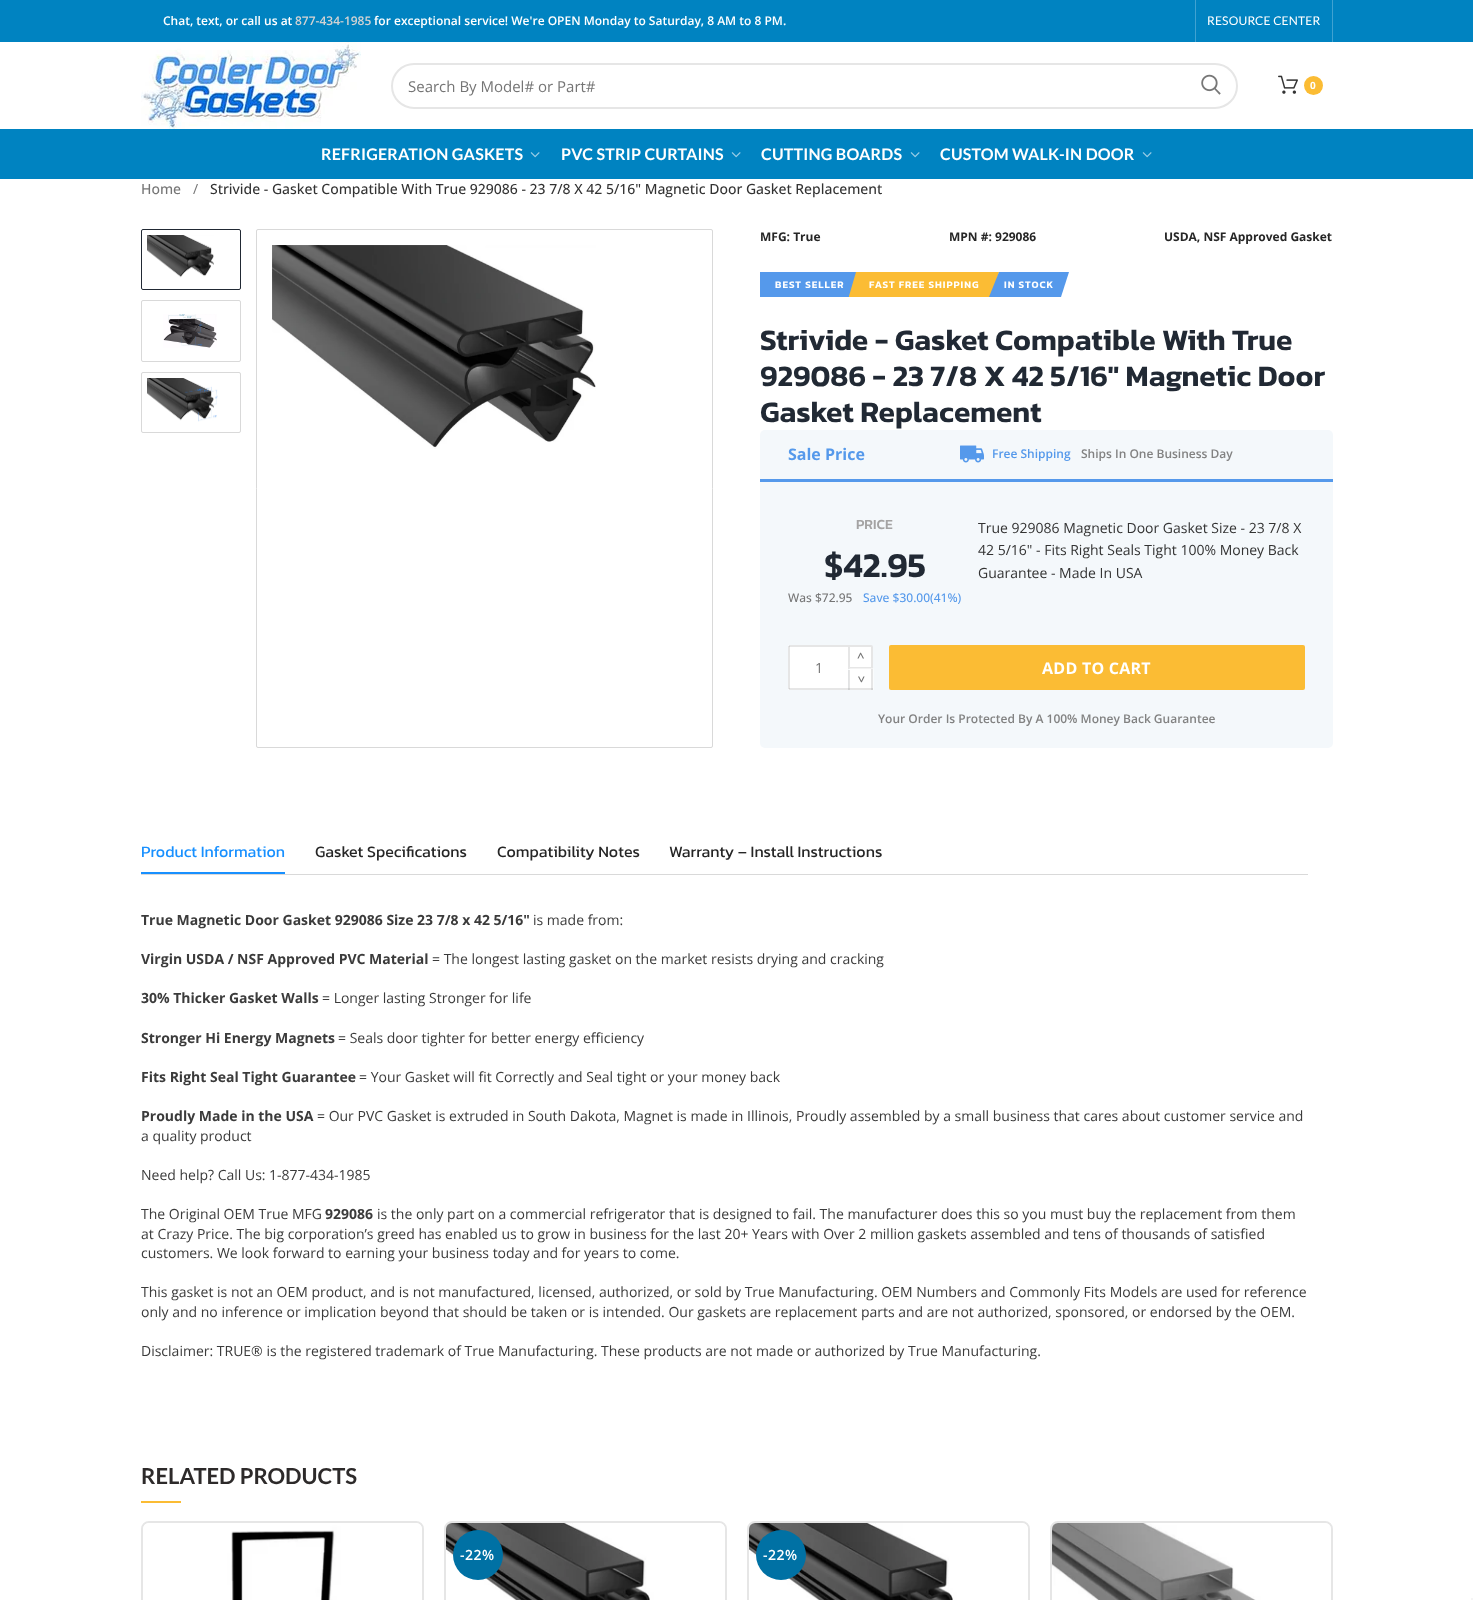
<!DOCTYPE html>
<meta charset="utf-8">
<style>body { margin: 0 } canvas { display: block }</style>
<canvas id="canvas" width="1473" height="1600"></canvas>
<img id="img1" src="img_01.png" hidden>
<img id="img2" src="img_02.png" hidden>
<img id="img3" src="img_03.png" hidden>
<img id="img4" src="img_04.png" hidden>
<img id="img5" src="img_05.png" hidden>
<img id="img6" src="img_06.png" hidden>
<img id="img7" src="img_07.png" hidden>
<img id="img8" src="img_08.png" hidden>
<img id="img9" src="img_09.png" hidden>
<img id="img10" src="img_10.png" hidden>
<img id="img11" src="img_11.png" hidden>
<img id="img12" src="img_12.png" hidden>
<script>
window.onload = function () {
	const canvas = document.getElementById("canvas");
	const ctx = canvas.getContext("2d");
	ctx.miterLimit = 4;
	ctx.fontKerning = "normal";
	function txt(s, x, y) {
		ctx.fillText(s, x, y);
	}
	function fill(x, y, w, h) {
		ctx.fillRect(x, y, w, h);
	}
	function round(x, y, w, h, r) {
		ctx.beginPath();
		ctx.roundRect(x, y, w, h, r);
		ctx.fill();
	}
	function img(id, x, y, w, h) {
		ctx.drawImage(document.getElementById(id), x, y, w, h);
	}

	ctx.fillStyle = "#FFFFFF";
	fill(0, 0, 1473, 1600);
	ctx.fillStyle = "#0083C1";
	fill(0, 0, 1473, 42);
	ctx.fillStyle = "#40A2D1";
	fill(1332, 0, 1, 42);
	fill(1195, 0, 1, 42);
	img("img1", 141, 42, 220, 87);
	ctx.beginPath();
	ctx.roundRect(392, 64, 845, 44, 22);
	ctx.strokeStyle = "#E6E6E6";
	ctx.lineWidth = 2;
	ctx.stroke();
	img("img2", 1201, 74, 20, 21);
	img("img3", 1278, 75, 20, 19);
	ctx.fillStyle = "#FBBC34";
	ctx.beginPath();
	ctx.arc(1313.5, 85.5, 9.5, 0, Math.PI * 2);
	ctx.fill();
	ctx.fillStyle = "#0083C1";
	fill(0, 129, 1473, 50);
	img("img4", 530, 152, 10, 6);
	img("img4", 731, 152, 10, 6);
	img("img4", 910, 152, 10, 6);
	img("img4", 1142, 152, 10, 6);
	ctx.beginPath();
	ctx.roundRect(141.5, 229.5, 99, 60, 1.5);
	ctx.strokeStyle = "#212934";
	ctx.lineWidth = 1;
	ctx.stroke();
	img("img5", 147, 235, 67, 43);
	ctx.beginPath();
	ctx.roundRect(141.5, 300.5, 99, 61, 1.5);
	ctx.strokeStyle = "#D9D9D9";
	ctx.stroke();
	img("img6", 163, 314, 54, 34);
	ctx.beginPath();
	ctx.roundRect(141.5, 372.5, 99, 60, 1.5);
	ctx.stroke();
	img("img7", 147, 378, 71, 44);
	ctx.beginPath();
	ctx.roundRect(256.5, 229.5, 456, 518, 1.5);
	ctx.stroke();
	img("img8", 272, 245, 324, 204);
	ctx.fillStyle = "#5599EB";
	ctx.beginPath();
	ctx.moveTo(860, 272);
	ctx.lineTo(850, 297);
	ctx.lineTo(760, 297);
	ctx.lineTo(760, 272);
	ctx.closePath();
	ctx.fill();
	ctx.fillStyle = "#FBBC34";
	ctx.beginPath();
	ctx.moveTo(849, 296);
	ctx.lineTo(856, 272);
	ctx.lineTo(999, 272);
	ctx.lineTo(992, 297);
	ctx.lineTo(849, 297);
	ctx.closePath();
	ctx.fill();
	ctx.fillStyle = "#5599EB";
	ctx.beginPath();
	ctx.moveTo(1069, 272);
	ctx.lineTo(1061, 297);
	ctx.lineTo(989, 297);
	ctx.lineTo(999, 272);
	ctx.closePath();
	ctx.fill();
	ctx.fillStyle = "#F4F8FB";
	round(760, 430, 573, 318, 5);
	ctx.fillStyle = "#5599EB";
	fill(760, 479, 573, 3);
	img("img9", 960, 445, 24, 18);
	ctx.fillStyle = "#FFFFFF";
	ctx.beginPath();
	ctx.roundRect(788, 645, 60, 45, [2, 0, 0, 2]);
	ctx.fill();
	ctx.fillStyle = "#E6E6E6";
	fill(789, 645, 59, 2);
	fill(789, 688, 59, 2);
	ctx.fillStyle = "rgba(129, 129, 129, 0.2)";
	fill(788, 646, 2, 43);
	ctx.fillStyle = "#FFFFFF";
	ctx.beginPath();
	ctx.roundRect(849, 646, 23, 22, [0, 1, 0, 0]);
	ctx.fill();
	ctx.strokeStyle = "#E6E6E6";
	ctx.lineWidth = 2;
	ctx.stroke();
	ctx.beginPath();
	ctx.moveTo(873.5, 690);
	ctx.lineTo(848.5, 690);
	ctx.lineTo(848.5, 670.5);
	ctx.bezierCurveTo(848.5, 669.5, 849, 668.5, 850.5, 668.5);
	ctx.lineTo(873.5, 668.5);
	ctx.closePath();
	ctx.fill();
	ctx.fillStyle = "rgba(129, 129, 129, 0.2)";
	fill(848, 688, 25, 2);
	fill(848, 670, 2, 20);
	fill(871, 669, 2, 21);
	ctx.fillStyle = "#FBBC34";
	round(889, 645, 416, 45, 2);
	ctx.fillStyle = "#D9D9D9";
	fill(141, 874, 1167, 1);
	ctx.fillStyle = "#1890FF";
	fill(141, 872, 144, 2);
	ctx.fillStyle = "#FBBC34";
	fill(141, 1501, 40, 2);
	ctx.beginPath();
	ctx.roundRect(142, 1522, 281, 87, 7);
	ctx.stroke();
	img("img10", 143, 1523, 279, 77);
	ctx.beginPath();
	ctx.roundRect(445, 1522, 281, 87, 7);
	ctx.stroke();
	img("img11", 446, 1523, 279, 77);
	ctx.fillStyle = "#0071A4";
	ctx.beginPath();
	ctx.arc(478, 1555, 25, 0, Math.PI * 2);
	ctx.fill();
	ctx.beginPath();
	ctx.roundRect(748, 1522, 281, 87, 7);
	ctx.stroke();
	img("img11", 749, 1523, 279, 77);
	ctx.beginPath();
	ctx.arc(781, 1555, 25, 0, Math.PI * 2);
	ctx.fill();
	ctx.beginPath();
	ctx.roundRect(1051, 1522, 281, 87, 7);
	ctx.stroke();
	img("img12", 1052, 1523, 279, 77);
	ctx.fillStyle = "#F5F5F5";
	fill(1471, 1598, 2, 2);
	ctx.font = "600 12px Open Sans";
	ctx.fillStyle = "#FFFFFF";
	txt("Chat, text, or call us at", 163, 25);
	ctx.fillStyle = "#D3D3D3";
	txt("877-434-1985", 295, 25);
	ctx.fillStyle = "#FFFFFF";
	txt("for exceptional service! We're OPEN Monday to Saturday, 8 AM to 8 PM.", 374, 25);
	ctx.letterSpacing = "0.2px";
	ctx.font = "12px Lato";
	txt("RESOURCE CENTER", 1207, 25);
	ctx.letterSpacing = "0px";
	ctx.font = "15px Open Sans";
	ctx.fillStyle = "#757575";
	txt("Search By Model# or Part#", 408, 92);
	ctx.font = "bold 10px Open Sans";
	ctx.fillStyle = "#FFFFFF";
	txt("0", 1310, 89);
	ctx.letterSpacing = "0.2px";
	ctx.font = "bold 16px Lato";
	txt("REFRIGERATION GASKETS", 321, 160);
	txt("PVC STRIP CURTAINS", 561, 160);
	txt("CUTTING BOARDS", 761, 160);
	txt("CUSTOM WALK-IN DOOR", 940, 160);
	ctx.letterSpacing = "0px";
	ctx.font = "500 14px Open Sans";
	ctx.fillStyle = "#757575";
	txt("Home", 141, 194);
	ctx.font = "14px Open Sans";
	txt("/", 193, 194);
	ctx.font = "500 14px Open Sans";
	ctx.fillStyle = "#333333";
	txt("Strivide - Gasket Compatible With True 929086 - 23 7/8 X 42 5/16\" Magnetic Door Gasket Replacement", 210, 194);
	ctx.font = "bold 12px Open Sans";
	ctx.fillStyle = "#262626";
	txt("MFG: True", 760, 241);
	txt("MPN #: 929086", 949, 241);
	txt("USDA, NSF Approved Gasket", 1164, 241);
	ctx.letterSpacing = "1px";
	ctx.font = "600 10px Kanit";
	ctx.fillStyle = "#FFFFFF";
	txt("BEST SELLER", 775, 288);
	txt("FAST FREE SHIPPING", 869, 288);
	txt("IN STOCK", 1004, 288);
	ctx.letterSpacing = "0px";
	ctx.font = "600 30px Kanit";
	ctx.fillStyle = "#212934";
	txt("Strivide - Gasket Compatible With True", 760, 350);
	txt("929086 - 23 7/8 X 42 5/16\" Magnetic Door", 760, 386);
	txt("Gasket Replacement", 760, 422);
	ctx.font = "bold 16px Open Sans";
	ctx.fillStyle = "#5599EB";
	txt("Sale Price", 788, 460);
	ctx.font = "600 12px Open Sans";
	txt("Free Shipping", 992, 458);
	ctx.fillStyle = "#828282";
	txt("Ships In One Business Day", 1081, 458);
	ctx.font = "500 14px Kanit";
	ctx.fillStyle = "#A4A3A3";
	txt("PRICE", 856, 529);
	ctx.font = "600 35px Kanit";
	ctx.fillStyle = "#212934";
	txt("$42.95", 824, 577);
	ctx.font = "500 12px Open Sans";
	ctx.fillStyle = "#757575";
	txt("Was $72.95", 788, 602);
	ctx.fillStyle = "#5599EB";
	txt("Save $30.00(41%)", 863, 602);
	ctx.font = "14px Open Sans";
	ctx.fillStyle = "#333333";
	txt("True 929086 Magnetic Door Gasket Size - 23 7/8 X", 978, 533);
	txt("42 5/16\" - Fits Right Seals Tight 100% Money Back", 978, 555);
	txt("Guarantee - Made In USA", 978, 578);
	ctx.fillStyle = "#757575";
	txt("1", 815, 673);
	ctx.letterSpacing = "0.25px";
	ctx.font = "600 13px Open Sans";
	txt("^", 857, 662);
	ctx.save();
	ctx.translate(865, 673);
	ctx.rotate(180 * Math.PI / 180);
	ctx.fillText("^", 0, 0);
	ctx.restore();
	ctx.font = "bold 16px Open Sans";
	ctx.fillStyle = "#FFFFFF";
	txt("ADD TO CART", 1042, 674);
	ctx.beginPath();
	ctx.moveTo(1091, 662);
	ctx.bezierCurveTo(1092.5, 660.5, 1095, 659.5, 1097, 659.5);
	ctx.bezierCurveTo(1107, 659.5, 1108.5, 674.5, 1098.5, 676.5);
	ctx.bezierCurveTo(1096, 677, 1093, 676, 1091, 674);
	ctx.strokeStyle = "#FBBC34";
	ctx.lineWidth = 1;
	ctx.stroke();
	ctx.letterSpacing = "0px";
	ctx.font = "600 12px Open Sans";
	ctx.fillStyle = "#828282";
	txt("Your Order Is Protected By A 100% Money Back Guarantee", 878, 723);
	ctx.font = "16px Kanit";
	ctx.fillStyle = "#1890FF";
	txt("Product Information", 141, 857);
	ctx.fillStyle = "#262626";
	txt("Gasket Specifications", 315, 857);
	txt("Compatibility Notes", 497, 857);
	txt("Warranty – Install Instructions", 669, 857);
	ctx.font = "bold 14px Open Sans";
	ctx.fillStyle = "#3B3B3B";
	txt("True Magnetic Door Gasket 929086 Size 23 7/8 x 42 5/16\"", 141, 925);
	ctx.font = "14px Open Sans";
	txt("is made from:", 533, 925);
	ctx.font = "bold 14px Open Sans";
	txt("Virgin USDA / NSF Approved PVC Material", 141, 964);
	ctx.font = "14px Open Sans";
	txt("= The longest lasting gasket on the market resists drying and cracking", 432, 964);
	ctx.font = "bold 14px Open Sans";
	txt("30% Thicker Gasket Walls", 141, 1003);
	ctx.font = "14px Open Sans";
	txt("= Longer lasting Stronger for life", 322, 1003);
	ctx.font = "bold 14px Open Sans";
	txt("Stronger Hi Energy Magnets", 141, 1043);
	ctx.font = "14px Open Sans";
	txt("= Seals door tighter for better energy efficiency", 338, 1043);
	ctx.font = "bold 14px Open Sans";
	txt("Fits Right Seal Tight Guarantee", 141, 1082);
	ctx.font = "14px Open Sans";
	txt("= Your Gasket will fit Correctly and Seal tight or your money back", 359, 1082);
	ctx.font = "bold 14px Open Sans";
	txt("Proudly Made in the USA", 141, 1121);
	ctx.font = "14px Open Sans";
	txt("= Our PVC Gasket is extruded in South Dakota, Magnet is made in Illinois, Proudly assembled by a small business that cares about customer service and", 317, 1121);
	txt("a quality product", 141, 1141);
	txt("Need help? Call Us:", 141, 1180);
	txt("1-877-434-1985", 269, 1180);
	txt("The Original OEM True MFG", 141, 1219);
	ctx.font = "bold 14px Open Sans";
	txt("929086", 325, 1219);
	ctx.font = "14px Open Sans";
	txt("is the only part on a commercial refrigerator that is designed to fail. The manufacturer does this so you must buy the replacement from them", 377, 1219);
	txt("at Crazy Price. The big corporation’s greed has enabled us to grow in business for the last 20+ Years with Over 2 million gaskets assembled and tens of thousands of satisfied", 141, 1239);
	txt("customers. We look forward to earning your business today and for years to come.", 141, 1258);
	txt("This gasket is not an OEM product, and is not manufactured, licensed, authorized, or sold by True Manufacturing. OEM Numbers and Commonly Fits Models are used for reference", 141, 1297);
	txt("only and no inference or implication beyond that should be taken or is intended. Our gaskets are replacement parts and are not authorized, sponsored, or endorsed by the OEM.", 141, 1317);
	txt("Disclaimer: TRUE® is the registered trademark of True Manufacturing. These products are not made or authorized by True Manufacturing.", 141, 1356);
	ctx.font = "bold 22px Lato";
	ctx.fillStyle = "#2D2A2A";
	txt("RELATED PRODUCTS", 141, 1484);
	ctx.letterSpacing = "0.5px";
	ctx.font = "600 14px Open Sans";
	ctx.fillStyle = "#FFFFFF";
	txt("-22%", 460, 1560);
	txt("-22%", 763, 1560);
};
</script>
